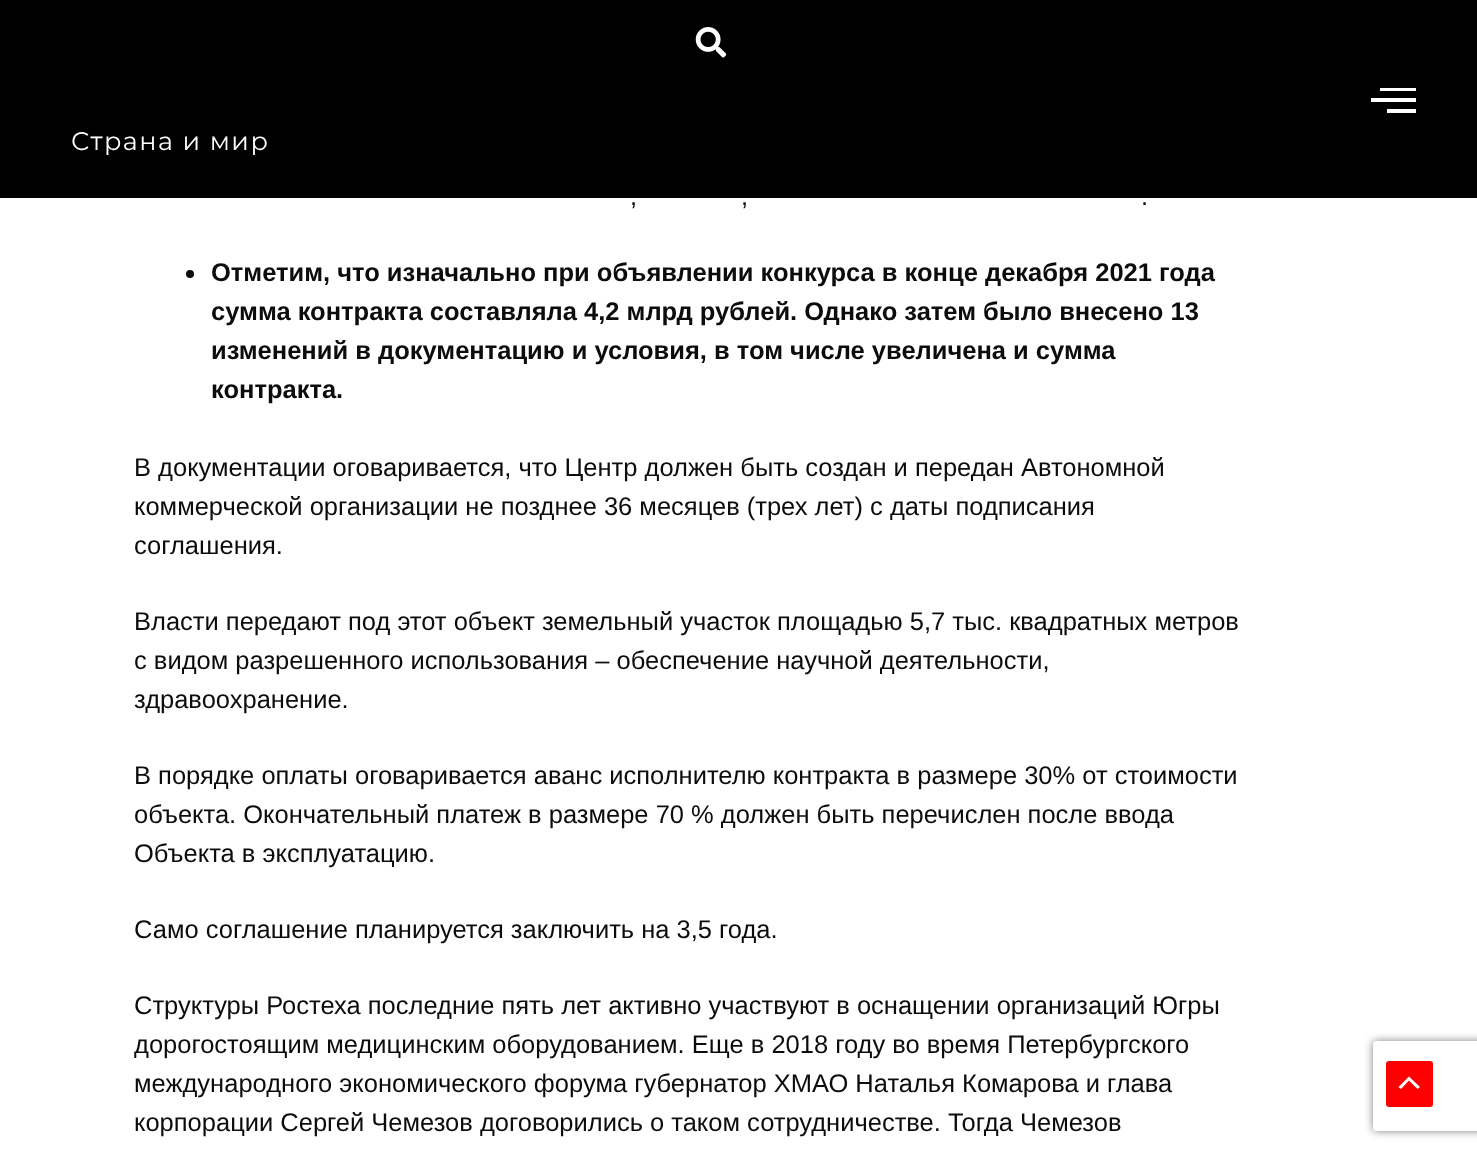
<!DOCTYPE html>
<meta charset="utf-8">
<style>body { margin: 0 } canvas { display: block }</style>
<canvas id="canvas" width="1477" height="1152"></canvas>
<img id="img1" src="img_01.png" hidden>
<script>
window.onload = function () {
	const canvas = document.getElementById("canvas");
	const ctx = canvas.getContext("2d");
	ctx.miterLimit = 4;
	ctx.fontKerning = "normal";
	function txt(s, x, y) {
		ctx.fillText(s, x, y);
	}
	function fill(x, y, w, h) {
		ctx.fillRect(x, y, w, h);
	}
	function round(x, y, w, h, r) {
		ctx.beginPath();
		ctx.roundRect(x, y, w, h, r);
		ctx.fill();
	}
	function img(id, x, y, w, h) {
		ctx.drawImage(document.getElementById(id), x, y, w, h);
	}

	ctx.fillStyle = "#FFFFFF";
	fill(0, 0, 1477, 1152);
	ctx.fillStyle = "#000000";
	fill(0, 0, 1477, 198);
	img("img1", 695, 27, 32, 31);
	ctx.fillStyle = "#FFFFFF";
	ctx.beginPath();
	ctx.moveTo(1371, 102);
	ctx.lineTo(1416, 102);
	ctx.lineTo(1416, 98);
	ctx.lineTo(1371, 98);
	ctx.closePath();
	ctx.moveTo(1387, 113);
	ctx.lineTo(1416, 113);
	ctx.lineTo(1416, 109);
	ctx.lineTo(1387, 109);
	ctx.closePath();
	ctx.moveTo(1380, 88);
	ctx.lineTo(1380, 91);
	ctx.lineTo(1416, 91);
	ctx.lineTo(1416, 88);
	ctx.closePath();
	ctx.fill();
	ctx.fillStyle = "#0C0C0C";
	ctx.beginPath();
	ctx.arc(190, 274, 4, 0, Math.PI * 2);
	ctx.fill();
	ctx.save();
	ctx.beginPath();
	ctx.moveTo(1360, 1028);
	ctx.lineTo(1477, 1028);
	ctx.lineTo(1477, 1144);
	ctx.lineTo(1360, 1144);
	ctx.closePath();
	ctx.moveTo(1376, 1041);
	ctx.lineTo(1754, 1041);
	ctx.bezierCurveTo(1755.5, 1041, 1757, 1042.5, 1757, 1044);
	ctx.lineTo(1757, 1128);
	ctx.bezierCurveTo(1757, 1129.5, 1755.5, 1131, 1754, 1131);
	ctx.lineTo(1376, 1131);
	ctx.bezierCurveTo(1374.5, 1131, 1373, 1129.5, 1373, 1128);
	ctx.lineTo(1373, 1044);
	ctx.bezierCurveTo(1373, 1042.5, 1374.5, 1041, 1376, 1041);
	ctx.closePath();
	ctx.clip("evenodd");
	ctx.fillStyle = "#808080";
	ctx.filter = "blur(4px)";
	ctx.beginPath();
	ctx.roundRect(1373, 1041, 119, 90, 3);
	ctx.fill();
	ctx.filter = "none";
	ctx.restore();
	ctx.fillStyle = "#FF0000";
	round(1386, 1061, 47, 46, 3);
	ctx.fillStyle = "#FFFFFF";
	ctx.beginPath();
	ctx.moveTo(1420, 1087);
	ctx.lineTo(1409, 1076.5);
	ctx.lineTo(1398.5, 1087);
	ctx.lineTo(1401, 1089);
	ctx.lineTo(1409, 1080.5);
	ctx.lineTo(1417.5, 1089);
	ctx.closePath();
	ctx.fill();
	ctx.letterSpacing = "1.5px";
	ctx.font = "25.5px Montserrat";
	txt("Страна и мир", 71, 150);
	ctx.letterSpacing = "0px";
	ctx.font = "25.5px Liberation Sans";
	ctx.fillStyle = "#0C0C0C";
	txt(",", 630, 205);
	txt(",", 741, 205);
	txt(".", 1141, 205);
	ctx.font = "bold 25.5px Liberation Sans";
	txt("Отметим, что изначально при объявлении конкурса в конце декабря 2021 года", 211, 281);
	txt("сумма контракта составляла 4,2 млрд рублей. Однако затем было внесено 13", 211, 320);
	txt("изменений в документацию и условия, в том числе увеличена и сумма", 211, 359);
	txt("контракта.", 211, 398);
	ctx.font = "25.5px Liberation Sans";
	txt("В документации оговаривается, что Центр должен быть создан и передан Автономной", 134, 476);
	txt("коммерческой организации не позднее 36 месяцев (трех лет) с даты подписания", 134, 515);
	txt("соглашения.", 134, 554);
	txt("Власти передают под этот объект земельный участок площадью 5,7 тыс. квадратных метров", 134, 630);
	txt("с видом разрешенного использования – обеспечение научной деятельности,", 134, 669);
	txt("здравоохранение.", 134, 708);
	txt("В порядке оплаты оговаривается аванс исполнителю контракта в размере 30% от стоимости", 134, 784);
	txt("объекта. Окончательный платеж в размере 70 % должен быть перечислен после ввода", 134, 823);
	txt("Объекта в эксплуатацию.", 134, 862);
	txt("Само соглашение планируется заключить на 3,5 года.", 134, 938);
	txt("Структуры Ростеха последние пять лет активно участвуют в оснащении организаций Югры", 134, 1014);
	txt("дорогостоящим медицинским оборудованием. Еще в 2018 году во время Петербургского", 134, 1053);
	txt("международного экономического форума губернатор ХМАО Наталья Комарова и глава", 134, 1092);
	txt("корпорации Сергей Чемезов договорились о таком сотрудничестве. Тогда Чемезов", 134, 1131);
};
</script>
